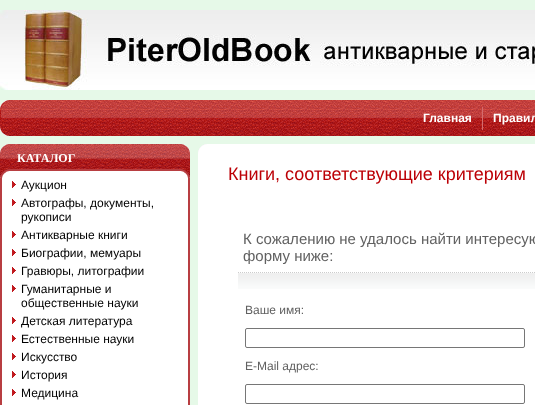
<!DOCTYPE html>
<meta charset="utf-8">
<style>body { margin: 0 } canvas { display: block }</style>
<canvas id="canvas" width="535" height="405"></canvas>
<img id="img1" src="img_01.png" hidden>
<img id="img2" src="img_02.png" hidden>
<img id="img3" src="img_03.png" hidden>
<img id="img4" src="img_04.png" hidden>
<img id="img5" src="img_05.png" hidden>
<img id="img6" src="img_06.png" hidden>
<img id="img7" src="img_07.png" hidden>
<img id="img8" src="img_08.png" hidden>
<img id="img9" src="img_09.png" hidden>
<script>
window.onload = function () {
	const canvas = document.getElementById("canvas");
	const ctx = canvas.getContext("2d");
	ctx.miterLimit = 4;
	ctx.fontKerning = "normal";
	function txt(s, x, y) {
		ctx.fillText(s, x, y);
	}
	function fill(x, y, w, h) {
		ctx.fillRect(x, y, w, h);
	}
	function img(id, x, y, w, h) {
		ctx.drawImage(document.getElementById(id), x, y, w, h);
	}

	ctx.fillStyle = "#E6F9E8";
	fill(0, 0, 535, 405);
	img("img1", 0, 10, 535, 80);
	img("img2", 0, 100, 10, 36);
	img("img3", 10, 100, 525, 36);
	ctx.fillStyle = "#D46B6D";
	fill(482, 107, 1, 23);
	img("img4", 0, 144, 10, 34);
	img("img5", 10, 144, 170, 34);
	img("img6", 180, 144, 10, 34);
	ctx.fillStyle = "#FFFFFF";
	fill(2, 178, 186, 227);
	ctx.fillStyle = "#B83E41";
	fill(188, 178, 2, 227);
	fill(0, 178, 2, 227);
	img("img7", 12, 181, 4, 7);
	img("img7", 12, 199, 4, 7);
	img("img7", 12, 231, 4, 7);
	img("img7", 12, 249, 4, 7);
	img("img7", 12, 267, 4, 7);
	img("img7", 12, 285, 4, 7);
	img("img7", 12, 317, 4, 7);
	img("img7", 12, 335, 4, 7);
	img("img7", 12, 353, 4, 7);
	img("img7", 12, 371, 4, 7);
	img("img7", 12, 389, 4, 7);
	img("img8", 198, 144, 10, 10);
	ctx.fillStyle = "#FFFFFF";
	fill(208, 144, 327, 10);
	fill(198, 154, 337, 251);
	img("img9", 238, 273, 297, 16);
	ctx.beginPath();
	ctx.moveTo(238, 272.5);
	ctx.lineTo(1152, 272.5);
	ctx.strokeStyle = "#CCCCCC";
	ctx.setLineDash([1, 1]);
	ctx.stroke();
	ctx.beginPath();
	ctx.roundRect(245.5, 328.5, 279, 19, 1.5);
	ctx.strokeStyle = "#767676";
	ctx.setLineDash([]);
	ctx.stroke();
	ctx.beginPath();
	ctx.roundRect(245.5, 384.5, 279, 19, 1.5);
	ctx.stroke();
	ctx.font = "bold 12px Liberation Sans";
	txt("Главная", 423, 122);
	txt("Правил", 493, 122);
	ctx.font = "bold 12px Liberation Serif";
	txt("КАТАЛОГ", 17, 162);
	ctx.font = "12px Liberation Sans";
	ctx.fillStyle = "#000000";
	txt("Аукцион", 21, 189);
	txt("Автографы, документы,", 21, 207);
	txt("рукописи", 21, 221);
	txt("Антикварные книги", 21, 239);
	txt("Биографии, мемуары", 21, 257);
	txt("Гравюры, литографии", 21, 275);
	txt("Гуманитарные и", 21, 293);
	txt("общественные науки", 21, 307);
	txt("Детская литература", 21, 325);
	txt("Естественные науки", 21, 343);
	txt("Искусство", 21, 361);
	txt("История", 21, 379);
	txt("Медицина", 21, 397);
	ctx.font = "18px Liberation Sans";
	ctx.fillStyle = "#BC0006";
	txt("Книги, соответствующие критериям", 228, 180);
	ctx.font = "15px Liberation Sans";
	ctx.fillStyle = "#616161";
	txt("К сожалению не удалось найти интересую", 243, 244);
	txt("форму ниже:", 243, 261);
	ctx.font = "12px Liberation Sans";
	txt("Ваше имя:", 245, 314);
	txt("E-Mail адрес:", 245, 370);
};
</script>
